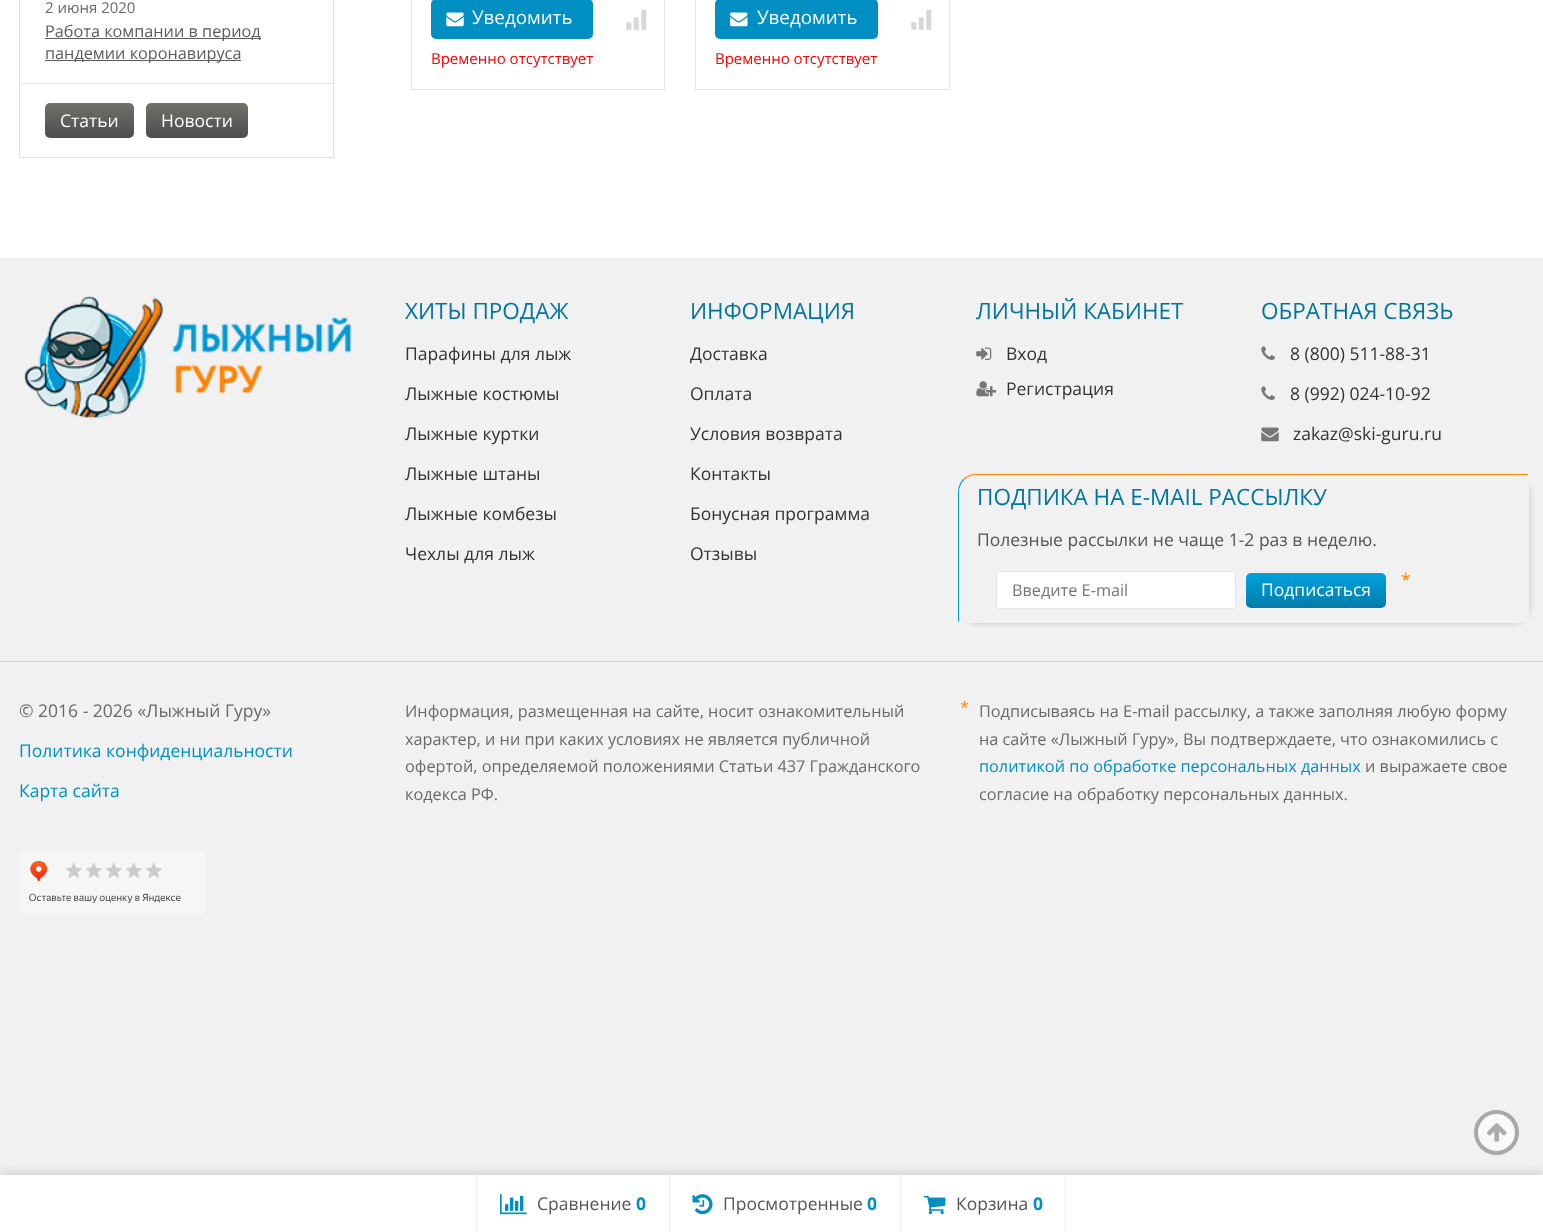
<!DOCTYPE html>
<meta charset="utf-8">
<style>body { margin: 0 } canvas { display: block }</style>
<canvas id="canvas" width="1543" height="1232"></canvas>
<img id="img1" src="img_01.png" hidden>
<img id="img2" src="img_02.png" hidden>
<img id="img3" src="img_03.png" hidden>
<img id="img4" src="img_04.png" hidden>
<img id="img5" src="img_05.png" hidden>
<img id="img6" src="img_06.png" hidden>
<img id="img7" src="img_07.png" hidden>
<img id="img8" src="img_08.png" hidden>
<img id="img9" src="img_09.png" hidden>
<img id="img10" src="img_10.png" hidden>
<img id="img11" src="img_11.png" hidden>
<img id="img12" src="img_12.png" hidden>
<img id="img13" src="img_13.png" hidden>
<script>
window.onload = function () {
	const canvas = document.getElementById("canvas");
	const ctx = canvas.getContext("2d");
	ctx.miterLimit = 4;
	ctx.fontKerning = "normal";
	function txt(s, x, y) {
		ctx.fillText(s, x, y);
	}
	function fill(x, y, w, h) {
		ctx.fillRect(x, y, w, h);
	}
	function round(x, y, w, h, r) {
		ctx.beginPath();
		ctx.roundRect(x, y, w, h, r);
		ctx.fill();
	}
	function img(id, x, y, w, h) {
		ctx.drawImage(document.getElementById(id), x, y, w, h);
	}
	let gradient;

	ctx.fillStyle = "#FFFFFF";
	fill(0, 0, 1543, 1232);
	ctx.strokeStyle = "#E0E0E0";
	ctx.strokeRect(19.5, -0.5, 314, 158);
	ctx.fillStyle = "#5C5C5C";
	fill(45, 38, 216, 1);
	fill(45, 60, 196, 1);
	ctx.fillStyle = "#E7E7E7";
	fill(20, 83, 313, 1);
	gradient = ctx.createLinearGradient(89, 103, 89, 138);
	gradient.addColorStop(0, "#70716F");
	gradient.addColorStop(1, "#4C4D4C");
	ctx.fillStyle = gradient;
	round(45, 103, 89, 35, 5);
	gradient = ctx.createLinearGradient(197, 103, 197, 138);
	gradient.addColorStop(0, "#70716F");
	gradient.addColorStop(1, "#4C4D4C");
	ctx.fillStyle = gradient;
	round(146, 103, 102, 35, 5);
	ctx.strokeStyle = "#E6E6E6";
	ctx.strokeRect(411.5, -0.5, 253, 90);
	ctx.fillStyle = "#008FC3";
	round(431, -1, 162, 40, 5);
	img("img1", 446, 12, 18, 15);
	img("img2", 626, 9, 21, 21);
	ctx.strokeRect(695.5, -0.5, 254, 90);
	round(715, -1, 163, 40, 5);
	img("img3", 730, 12, 18, 15);
	img("img2", 911, 9, 21, 21);
	ctx.fillStyle = "#F2F1F2";
	fill(0, 258, 1543, 917);
	img("img4", 24, 296, 328, 122);
	img("img5", 976, 347, 16, 13);
	img("img6", 976, 381, 21, 16);
	img("img7", 1261, 346, 14, 14);
	img("img7", 1261, 386, 14, 14);
	img("img8", 1261, 427, 18, 15);
	ctx.save();
	ctx.beginPath();
	ctx.moveTo(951, 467);
	ctx.lineTo(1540, 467);
	ctx.lineTo(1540, 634);
	ctx.lineTo(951, 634);
	ctx.closePath();
	ctx.moveTo(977, 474);
	ctx.lineTo(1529, 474);
	ctx.lineTo(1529, 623);
	ctx.lineTo(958, 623);
	ctx.lineTo(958, 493);
	ctx.bezierCurveTo(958, 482.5, 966.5, 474, 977, 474);
	ctx.closePath();
	ctx.clip("evenodd");
	ctx.fillStyle = "#D6D6D6";
	ctx.filter = "blur(2.5px)";
	ctx.beginPath();
	ctx.roundRect(960, 476, 571, 149, 19);
	ctx.fill();
	ctx.filter = "none";
	ctx.restore();
	ctx.fillStyle = "#FF8500";
	ctx.beginPath();
	ctx.moveTo(976, 474);
	ctx.bezierCurveTo(971, 474, 966, 476, 963, 479);
	ctx.lineTo(964, 480);
	ctx.bezierCurveTo(967, 477, 971, 475, 976, 475);
	ctx.lineTo(1528, 475);
	ctx.lineTo(1528, 474);
	ctx.closePath();
	ctx.fill();
	ctx.fillStyle = "#009BD3";
	ctx.beginPath();
	ctx.moveTo(963, 479);
	ctx.bezierCurveTo(960, 483, 958, 487, 958, 492);
	ctx.lineTo(958, 622);
	ctx.lineTo(959, 621);
	ctx.lineTo(959, 492);
	ctx.bezierCurveTo(959, 488, 961, 483, 964, 480);
	ctx.closePath();
	ctx.fill();
	ctx.fillStyle = "#FFFFFF";
	ctx.beginPath();
	ctx.roundRect(996.5, 571.5, 239, 37, 2);
	ctx.fill();
	ctx.strokeStyle = "#E4E4E4";
	ctx.stroke();
	gradient = ctx.createLinearGradient(1316, 573, 1316, 608);
	gradient.addColorStop(0, "#00A2DD");
	gradient.addColorStop(1, "#007CAA");
	ctx.fillStyle = gradient;
	round(1246, 573, 140, 35, 5);
	ctx.fillStyle = "#D5D5D5";
	fill(0, 661, 1543, 1);
	img("img9", 19, 851, 187, 62);
	ctx.fillStyle = "#FAF9FA";
	ctx.beginPath();
	ctx.arc(1496.5, 1132.5, 20.5, 0, Math.PI * 2);
	ctx.fill();
	ctx.strokeStyle = "#A8A8A8";
	ctx.lineWidth = 4;
	ctx.stroke();
	img("img10", 1487, 1123, 20, 19);
	ctx.fillStyle = "rgba(0, 0, 0, 0.2)";
	ctx.filter = "blur(6px)";
	ctx.beginPath();
	ctx.rect(0, 1175, 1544, 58);
	ctx.fill();
	ctx.filter = "none";
	ctx.fillStyle = "#FFFFFF";
	fill(0, 1175, 1543, 57);
	ctx.fillStyle = "#EEEEEE";
	fill(476, 1175, 1, 57);
	img("img11", 500, 1194, 27, 21);
	fill(669, 1175, 1, 57);
	img("img12", 692, 1194, 21, 21);
	fill(1065, 1175, 1, 57);
	fill(900, 1175, 1, 57);
	img("img13", 923, 1195, 23, 20);
	ctx.font = "15px Open Sans";
	ctx.fillStyle = "#696969";
	txt("2 июня 2020", 45, 13);
	ctx.font = "16.25px Open Sans";
	ctx.fillStyle = "#5C5C5C";
	txt("Работа компании в период", 45, 37);
	txt("пандемии коронавируса", 45, 59);
	ctx.font = "17.5px Open Sans";
	ctx.fillStyle = "#FFFFFF";
	txt("Статьи", 60, 127);
	txt("Новости", 161, 127);
	ctx.font = "18.75px Open Sans";
	txt("Уведомить", 472, 24);
	ctx.font = "15px Open Sans";
	ctx.fillStyle = "#FF0000";
	txt("Временно отсутствует", 431, 64);
	ctx.font = "18.75px Open Sans";
	ctx.fillStyle = "#FFFFFF";
	txt("Уведомить", 757, 24);
	ctx.font = "15px Open Sans";
	ctx.fillStyle = "#FF0000";
	txt("Временно отсутствует", 715, 64);
	ctx.font = "22.5px Open Sans";
	ctx.fillStyle = "#00759F";
	txt("ХИТЫ ПРОДАЖ", 405, 319);
	ctx.font = "17.5px Open Sans";
	ctx.fillStyle = "#333333";
	txt("Парафины для лыж", 405, 360);
	txt("Лыжные костюмы", 405, 400);
	txt("Лыжные куртки", 405, 440);
	txt("Лыжные штаны", 405, 480);
	txt("Лыжные комбезы", 405, 520);
	txt("Чехлы для лыж", 405, 560);
	ctx.font = "22.5px Open Sans";
	ctx.fillStyle = "#00759F";
	txt("ИНФОРМАЦИЯ", 690, 319);
	ctx.font = "17.5px Open Sans";
	ctx.fillStyle = "#333333";
	txt("Доставка", 690, 360);
	txt("Оплата", 690, 400);
	txt("Условия возврата", 690, 440);
	txt("Контакты", 690, 480);
	txt("Бонусная программа", 690, 520);
	txt("Отзывы", 690, 560);
	ctx.font = "22.5px Open Sans";
	ctx.fillStyle = "#00759F";
	txt("ЛИЧНЫЙ КАБИНЕТ", 976, 319);
	ctx.font = "17.5px Open Sans";
	ctx.fillStyle = "#333333";
	txt("Вход", 1006, 360);
	txt("Регистрация", 1006, 395);
	ctx.font = "22.5px Open Sans";
	ctx.fillStyle = "#00759F";
	txt("ОБРАТНАЯ СВЯЗЬ", 1261, 319);
	ctx.font = "17.5px Open Sans";
	ctx.fillStyle = "#333333";
	txt("8 (800) 511-88-31", 1290, 360);
	txt("8 (992) 024-10-92", 1290, 400);
	txt("zakaz@ski-guru.ru", 1293, 440);
	ctx.font = "22.5px Open Sans";
	ctx.fillStyle = "#00759F";
	txt("ПОДПИКА НА E-MAIL РАССЫЛКУ", 977, 505);
	ctx.font = "17.5px Open Sans";
	ctx.fillStyle = "#555555";
	txt("Полезные рассылки не чаще 1-2 раз в неделю.", 977, 546);
	ctx.font = "16.25px Open Sans";
	ctx.fillStyle = "#757575";
	txt("Введите E-mail", 1012, 596);
	ctx.font = "17.5px Open Sans";
	ctx.fillStyle = "#FF8500";
	txt("*", 1401, 586);
	ctx.fillStyle = "#FFFFFF";
	txt("Подписаться", 1261, 596);
	ctx.fillStyle = "#696969";
	txt("© 2016 - 2026 «Лыжный Гуру»", 19, 717);
	ctx.fillStyle = "#008FC3";
	txt("Политика конфиденциальности", 19, 757);
	txt("Карта сайта", 19, 797);
	ctx.font = "16.25px Open Sans";
	ctx.fillStyle = "#696969";
	txt("Информация, размещенная на сайте, носит ознакомительный", 405, 717);
	txt("характер, и ни при каких условиях не является публичной", 405, 745);
	txt("офертой, определяемой положениями Статьи 437 Гражданского", 405, 772);
	txt("кодекса РФ.", 405, 800);
	ctx.fillStyle = "#FF8500";
	txt("*", 960, 713);
	ctx.fillStyle = "#696969";
	txt("Подписываясь на E-mail рассылку, а также заполняя любую форму", 979, 717);
	txt("на сайте «Лыжный Гуру», Вы подтверждаете, что ознакомились с", 979, 745);
	ctx.fillStyle = "#008FC3";
	txt("политикой по обработке персональных данных", 979, 772);
	ctx.fillStyle = "#696969";
	txt("и выражаете свое", 1365, 772);
	txt("согласие на обработку персональных данных.", 979, 800);
	ctx.font = "17.5px Open Sans";
	ctx.fillStyle = "#555555";
	txt("Сравнение", 537, 1210);
	ctx.font = "bold 17.5px Open Sans";
	ctx.fillStyle = "#008FC3";
	txt("0", 636, 1210);
	ctx.font = "17.5px Open Sans";
	ctx.fillStyle = "#555555";
	txt("Просмотренные", 723, 1210);
	ctx.font = "bold 17.5px Open Sans";
	ctx.fillStyle = "#008FC3";
	txt("0", 867, 1210);
	ctx.font = "17.5px Open Sans";
	ctx.fillStyle = "#555555";
	txt("Корзина", 956, 1210);
	ctx.font = "bold 17.5px Open Sans";
	ctx.fillStyle = "#008FC3";
	txt("0", 1033, 1210);
};
</script>
